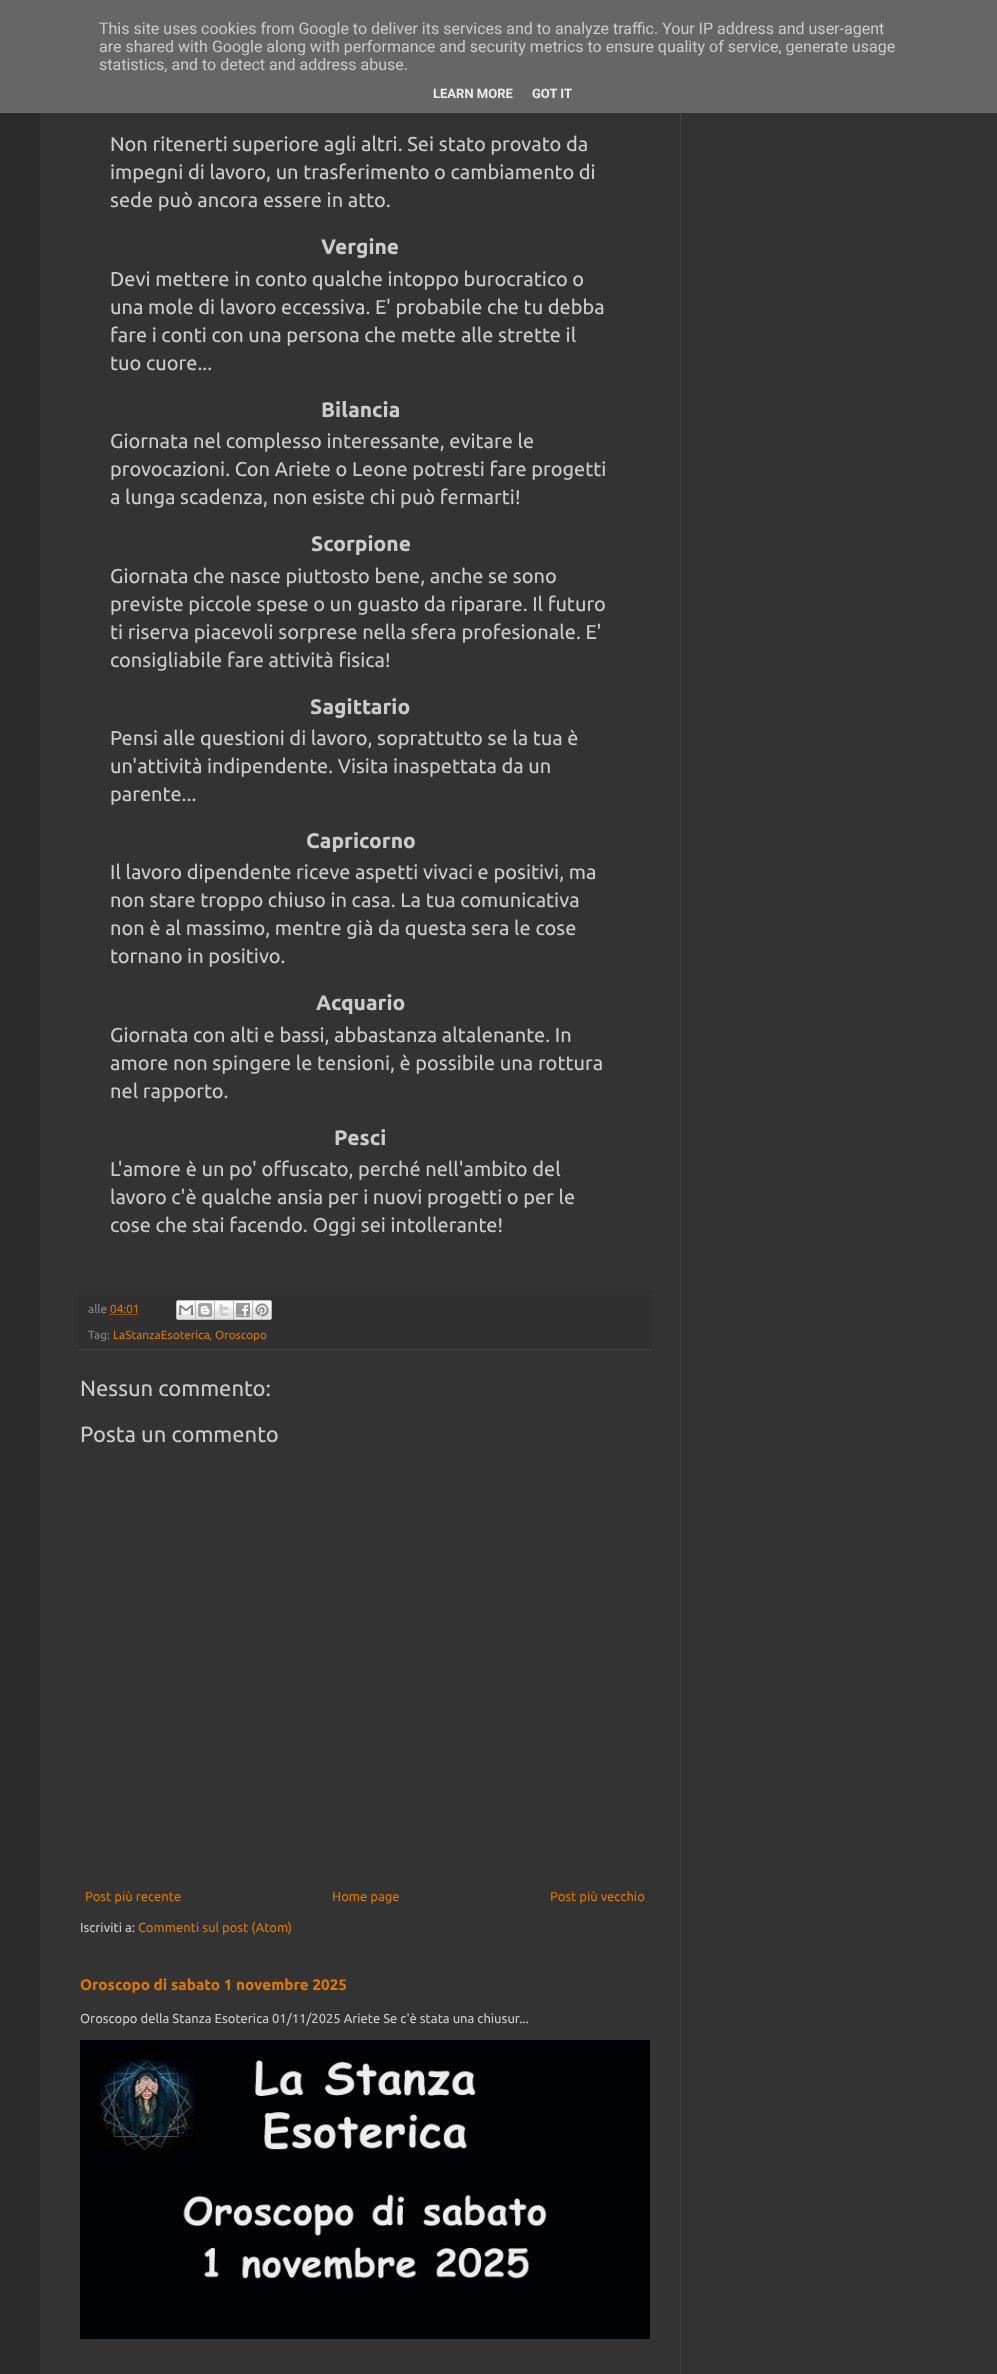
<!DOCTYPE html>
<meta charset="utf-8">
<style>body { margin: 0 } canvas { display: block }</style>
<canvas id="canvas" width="997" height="2374"></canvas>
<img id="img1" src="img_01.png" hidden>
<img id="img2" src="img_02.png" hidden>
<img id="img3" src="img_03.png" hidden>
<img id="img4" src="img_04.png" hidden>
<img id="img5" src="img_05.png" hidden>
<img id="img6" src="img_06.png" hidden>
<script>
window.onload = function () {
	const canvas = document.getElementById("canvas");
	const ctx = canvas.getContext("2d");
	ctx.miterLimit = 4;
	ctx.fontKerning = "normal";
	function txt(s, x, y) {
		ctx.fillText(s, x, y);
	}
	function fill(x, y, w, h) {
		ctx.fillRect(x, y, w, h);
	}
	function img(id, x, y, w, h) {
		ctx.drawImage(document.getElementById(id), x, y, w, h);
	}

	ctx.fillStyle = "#292929";
	fill(0, 0, 997, 2374);
	ctx.fillStyle = "#666666";
	fill(0, 0, 997, 113);
	ctx.fillStyle = "#333333";
	fill(40, 113, 957, 2261);
	ctx.fillStyle = "#303030";
	fill(78, 1289, 574, 60);
	ctx.fillStyle = "#444444";
	fill(78, 1349, 574, 1);
	ctx.beginPath();
	ctx.moveTo(109.5, 1314.5);
	ctx.lineTo(139, 1314.5);
	ctx.strokeStyle = "#DD7700";
	ctx.setLineDash([1, 1]);
	ctx.stroke();
	img("img1", 176, 1300, 20, 20);
	img("img2", 196, 1300, 19, 20);
	img("img3", 215, 1300, 19, 20);
	img("img4", 234, 1300, 19, 20);
	img("img5", 253, 1300, 19, 20);
	img("img6", 80, 2040, 570, 299);
	ctx.fillStyle = "#404040";
	fill(680, 113, 1, 2261);
	ctx.font = "16px Roboto";
	ctx.fillStyle = "#CCCCCC";
	txt("This site uses cookies from Google to deliver its services and to analyze traffic. Your IP address and user-agent", 99, 34);
	txt("are shared with Google along with performance and security metrics to ensure quality of service, generate usage", 99, 52);
	txt("statistics, and to detect and address abuse.", 99, 70);
	ctx.font = "bold 13px Roboto";
	ctx.fillStyle = "#EEEEEE";
	txt("LEARN MORE", 433, 98);
	txt("GOT IT", 532, 98);
	ctx.font = "20px Ubuntu";
	ctx.fillStyle = "#CCCCCC";
	txt("Non ritenerti superiore agli altri. Sei stato provato da", 110, 151);
	txt("impegni di lavoro, un trasferimento o cambiamento di", 110, 179);
	txt("sede può ancora essere in atto.", 110, 207);
	ctx.font = "bold 21px Ubuntu";
	txt("Vergine", 321, 254);
	ctx.font = "20px Ubuntu";
	txt("Devi mettere in conto qualche intoppo burocratico o", 110, 286);
	txt("una mole di lavoro eccessiva. E' probabile che tu debba", 110, 314);
	txt("fare i conti con una persona che mette alle strette il", 110, 342);
	txt("tuo cuore...", 110, 370);
	ctx.font = "bold 21px Ubuntu";
	txt("Bilancia", 321, 417);
	ctx.font = "20px Ubuntu";
	txt("Giornata nel complesso interessante, evitare le", 110, 448);
	txt("provocazioni. Con Ariete o Leone potresti fare progetti", 110, 476);
	txt("a lunga scadenza, non esiste chi può fermarti!", 110, 504);
	ctx.font = "bold 21px Ubuntu";
	txt("Scorpione", 311, 551);
	ctx.font = "20px Ubuntu";
	txt("Giornata che nasce piuttosto bene, anche se sono", 110, 583);
	txt("previste piccole spese o un guasto da riparare. Il futuro", 110, 611);
	txt("ti riserva piacevoli sorprese nella sfera profesionale. E'", 110, 639);
	txt("consigliabile fare attività fisica!", 110, 667);
	ctx.font = "bold 21px Ubuntu";
	txt("Sagittario", 310, 714);
	ctx.font = "20px Ubuntu";
	txt("Pensi alle questioni di lavoro, soprattutto se la tua è", 110, 745);
	txt("un'attività indipendente. Visita inaspettata da un", 110, 773);
	txt("parente...", 110, 801);
	ctx.font = "bold 21px Ubuntu";
	txt("Capricorno", 306, 848);
	ctx.font = "20px Ubuntu";
	txt("Il lavoro dipendente riceve aspetti vivaci e positivi, ma", 110, 879);
	txt("non stare troppo chiuso in casa. La tua comunicativa", 110, 907);
	txt("non è al massimo, mentre già da questa sera le cose", 110, 935);
	txt("tornano in positivo.", 110, 963);
	ctx.font = "bold 21px Ubuntu";
	txt("Acquario", 316, 1010);
	ctx.font = "20px Ubuntu";
	txt("Giornata con alti e bassi, abbastanza altalenante. In", 110, 1042);
	txt("amore non spingere le tensioni, è possibile una rottura", 110, 1070);
	txt("nel rapporto.", 110, 1098);
	ctx.font = "bold 21px Ubuntu";
	txt("Pesci", 334, 1145);
	ctx.font = "20px Ubuntu";
	txt("L'amore è un po' offuscato, perché nell'ambito del", 110, 1176);
	txt("lavoro c'è qualche ansia per i nuovi progetti o per le", 110, 1204);
	txt("cose che stai facendo. Oggi sei intollerante!", 110, 1232);
	ctx.font = "11.75px Ubuntu";
	ctx.fillStyle = "#888888";
	txt("alle", 88, 1313);
	ctx.fillStyle = "#DD7700";
	txt("04:01", 110, 1313);
	ctx.fillStyle = "#888888";
	txt("Tag:", 88, 1339);
	ctx.fillStyle = "#DD7700";
	txt("LaStanzaEsoterica", 113, 1339);
	ctx.fillStyle = "#888888";
	txt(",", 209, 1339);
	ctx.fillStyle = "#DD7700";
	txt("Oroscopo", 215, 1339);
	ctx.font = "22px Ubuntu";
	ctx.fillStyle = "#CCCCCC";
	txt("Nessun commento:", 80, 1396);
	txt("Posta un commento", 80, 1442);
	ctx.font = "13px Ubuntu";
	ctx.fillStyle = "#DD7700";
	txt("Post più recente", 85, 1901);
	txt("Home page", 332, 1901);
	txt("Post più vecchio", 550, 1901);
	ctx.fillStyle = "#CCCCCC";
	txt("Iscriviti a:", 80, 1932);
	ctx.fillStyle = "#DD7700";
	txt("Commenti sul post (Atom)", 138, 1932);
	ctx.font = "bold 15.25px Ubuntu";
	txt("Oroscopo di sabato 1 novembre 2025", 80, 1990);
	ctx.font = "13px Ubuntu";
	ctx.fillStyle = "#CCCCCC";
	txt("Oroscopo della Stanza Esoterica 01/11/2025 Ariete Se c'è stata una chiusur...", 80, 2023);
};
</script>
